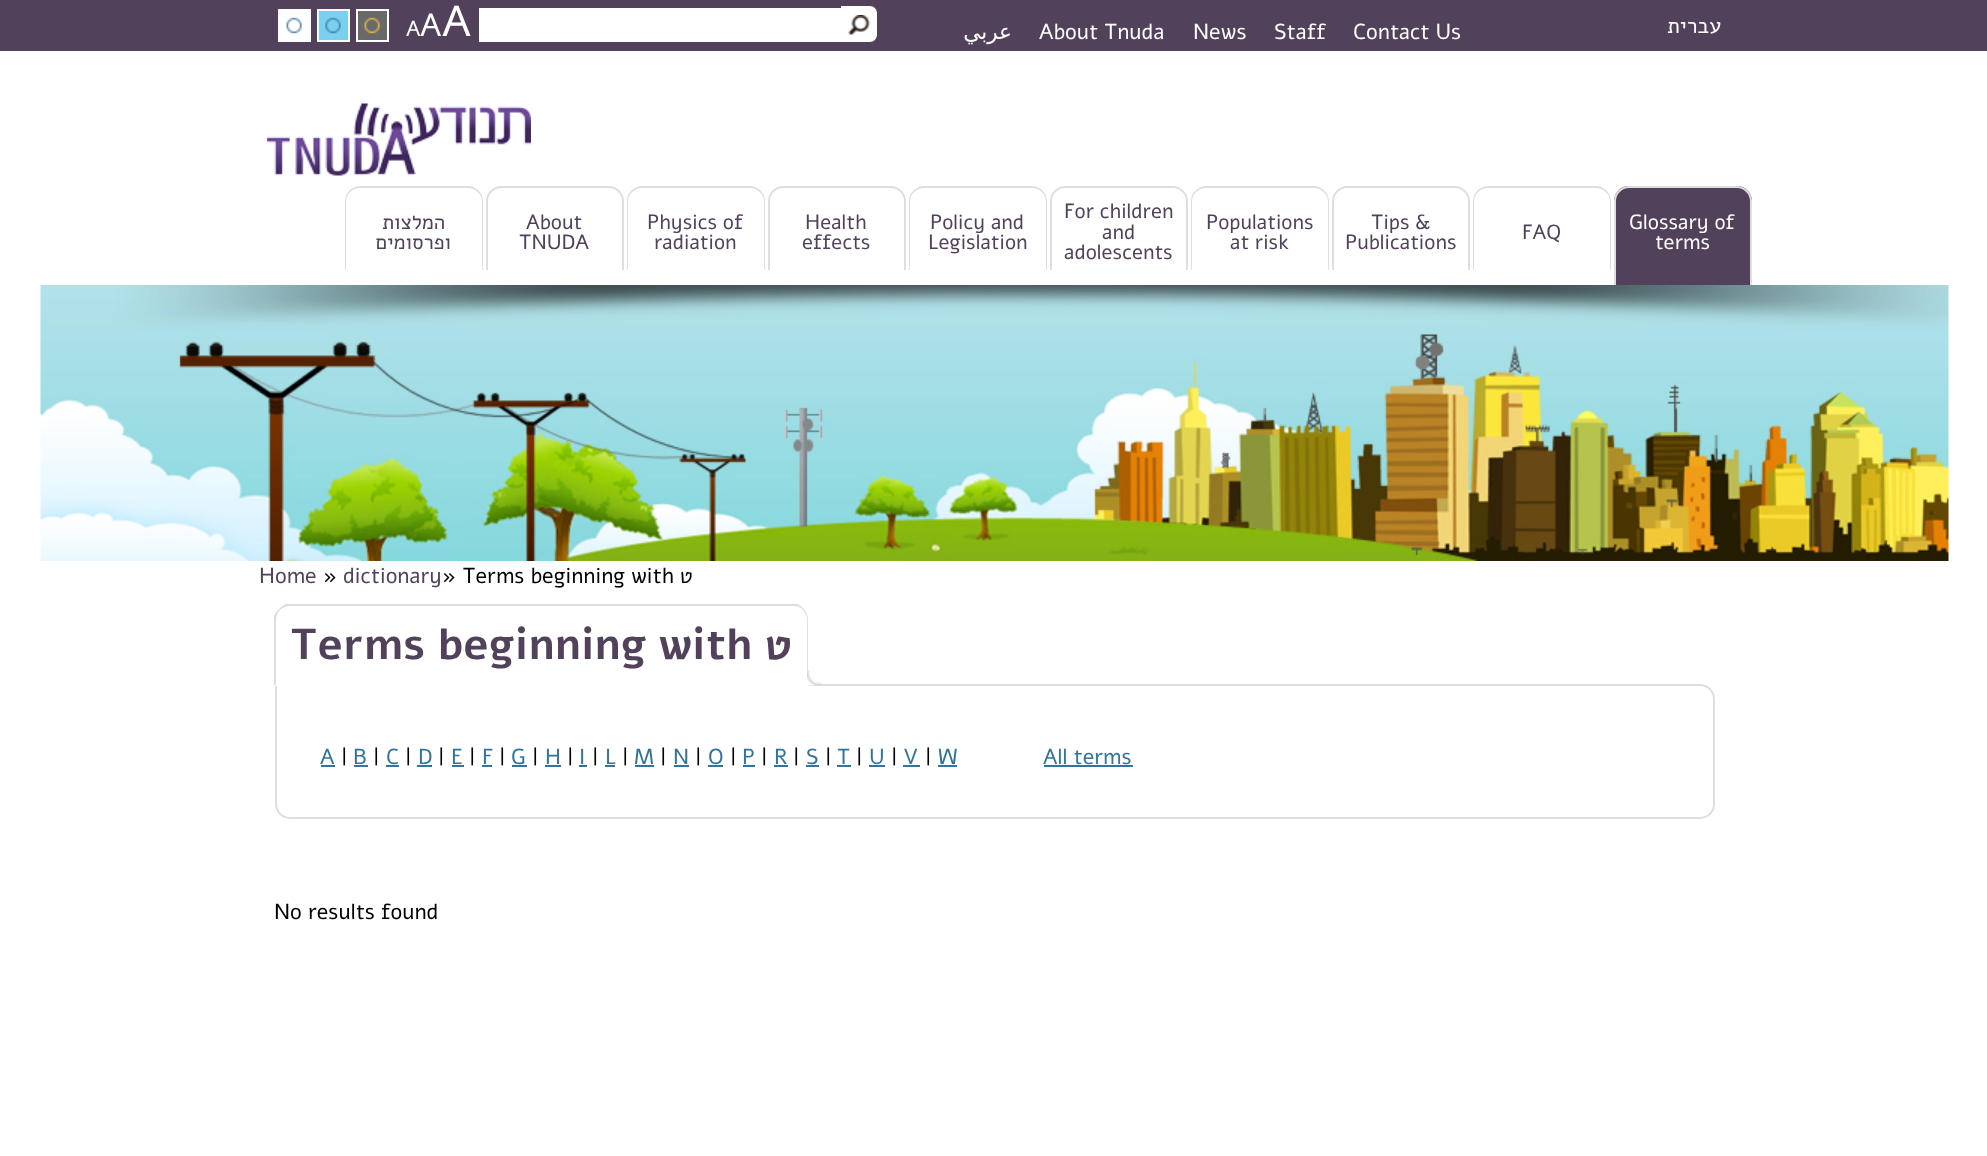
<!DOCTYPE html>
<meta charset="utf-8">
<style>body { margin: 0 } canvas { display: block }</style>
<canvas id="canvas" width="1987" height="1156"></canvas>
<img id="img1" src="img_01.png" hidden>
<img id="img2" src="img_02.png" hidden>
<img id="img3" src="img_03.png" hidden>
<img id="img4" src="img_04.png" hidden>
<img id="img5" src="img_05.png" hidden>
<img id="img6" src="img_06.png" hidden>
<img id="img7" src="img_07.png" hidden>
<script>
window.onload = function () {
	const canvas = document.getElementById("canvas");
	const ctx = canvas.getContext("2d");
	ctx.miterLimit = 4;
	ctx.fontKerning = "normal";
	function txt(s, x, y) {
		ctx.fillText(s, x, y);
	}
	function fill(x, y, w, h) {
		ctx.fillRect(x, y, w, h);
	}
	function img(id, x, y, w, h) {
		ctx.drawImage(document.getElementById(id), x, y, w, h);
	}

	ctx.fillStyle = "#FFFFFF";
	fill(0, 0, 1987, 1156);
	ctx.fillStyle = "#52415B";
	fill(0, 0, 1987, 51);
	ctx.fillStyle = "#FFFFFF";
	fill(278, 9, 33, 33);
	img("img1", 286, 17, 16, 17);
	ctx.fillStyle = "#79D1EF";
	fill(319, 11, 29, 29);
	img("img2", 325, 17, 16, 17);
	ctx.strokeStyle = "#FFFFFF";
	ctx.lineWidth = 2;
	ctx.strokeRect(318, 10, 31, 31);
	ctx.fillStyle = "#6A6969";
	fill(358, 11, 29, 29);
	img("img3", 364, 17, 16, 17);
	ctx.strokeRect(357, 10, 31, 31);
	ctx.fillStyle = "#FFFFFF";
	fill(479, 8, 362, 34);
	ctx.beginPath();
	ctx.moveTo(869.5, 6);
	ctx.lineTo(841, 6);
	ctx.lineTo(841, 42);
	ctx.lineTo(869.5, 42);
	ctx.bezierCurveTo(874, 42, 877, 38.5, 877, 34.5);
	ctx.lineTo(877, 13.5);
	ctx.bezierCurveTo(877, 9.5, 874, 6, 869.5, 6);
	ctx.closePath();
	ctx.fill();
	img("img4", 848, 15, 23, 20);
	img("img5", 267, 103, 264, 73);
	ctx.fillStyle = "#DEDEDE";
	ctx.beginPath();
	ctx.moveTo(360, 186);
	ctx.lineTo(468, 186);
	ctx.bezierCurveTo(476, 186, 483, 193, 483, 201);
	ctx.lineTo(483, 270);
	ctx.lineTo(345, 270);
	ctx.lineTo(345, 201);
	ctx.bezierCurveTo(345, 193, 352, 186, 360, 186);
	ctx.closePath();
	ctx.moveTo(360, 188);
	ctx.lineTo(468, 188);
	ctx.bezierCurveTo(475, 188, 482, 194, 482, 201);
	ctx.lineTo(482, 270);
	ctx.lineTo(346, 270);
	ctx.lineTo(346, 201);
	ctx.bezierCurveTo(346, 194, 353, 188, 360, 188);
	ctx.closePath();
	ctx.fill("evenodd");
	ctx.beginPath();
	ctx.moveTo(501, 186);
	ctx.lineTo(609, 186);
	ctx.bezierCurveTo(617, 186, 624, 193, 624, 201);
	ctx.lineTo(624, 270);
	ctx.lineTo(486, 270);
	ctx.lineTo(486, 201);
	ctx.bezierCurveTo(486, 193, 493, 186, 501, 186);
	ctx.closePath();
	ctx.moveTo(501, 188);
	ctx.lineTo(609, 188);
	ctx.bezierCurveTo(616, 188, 622, 194, 622, 201);
	ctx.lineTo(622, 270);
	ctx.lineTo(488, 270);
	ctx.lineTo(488, 201);
	ctx.bezierCurveTo(488, 194, 494, 188, 501, 188);
	ctx.closePath();
	ctx.fill("evenodd");
	ctx.beginPath();
	ctx.moveTo(642, 186);
	ctx.lineTo(750, 186);
	ctx.bezierCurveTo(758, 186, 765, 193, 765, 201);
	ctx.lineTo(765, 270);
	ctx.lineTo(627, 270);
	ctx.lineTo(627, 201);
	ctx.bezierCurveTo(627, 193, 634, 186, 642, 186);
	ctx.closePath();
	ctx.moveTo(642, 188);
	ctx.lineTo(750, 188);
	ctx.bezierCurveTo(757, 188, 764, 194, 764, 201);
	ctx.lineTo(764, 270);
	ctx.lineTo(628, 270);
	ctx.lineTo(628, 201);
	ctx.bezierCurveTo(628, 194, 635, 188, 642, 188);
	ctx.closePath();
	ctx.fill("evenodd");
	ctx.beginPath();
	ctx.moveTo(783, 186);
	ctx.lineTo(891, 186);
	ctx.bezierCurveTo(899, 186, 906, 193, 906, 201);
	ctx.lineTo(906, 270);
	ctx.lineTo(768, 270);
	ctx.lineTo(768, 201);
	ctx.bezierCurveTo(768, 193, 775, 186, 783, 186);
	ctx.closePath();
	ctx.moveTo(783, 188);
	ctx.lineTo(891, 188);
	ctx.bezierCurveTo(898, 188, 904, 194, 904, 201);
	ctx.lineTo(904, 270);
	ctx.lineTo(770, 270);
	ctx.lineTo(770, 201);
	ctx.bezierCurveTo(770, 194, 776, 188, 783, 188);
	ctx.closePath();
	ctx.fill("evenodd");
	ctx.beginPath();
	ctx.moveTo(924, 186);
	ctx.lineTo(1032, 186);
	ctx.bezierCurveTo(1040, 186, 1047, 193, 1047, 201);
	ctx.lineTo(1047, 270);
	ctx.lineTo(909, 270);
	ctx.lineTo(909, 201);
	ctx.bezierCurveTo(909, 193, 916, 186, 924, 186);
	ctx.closePath();
	ctx.moveTo(924, 188);
	ctx.lineTo(1032, 188);
	ctx.bezierCurveTo(1039, 188, 1046, 194, 1046, 201);
	ctx.lineTo(1046, 270);
	ctx.lineTo(910, 270);
	ctx.lineTo(910, 201);
	ctx.bezierCurveTo(910, 194, 917, 188, 924, 188);
	ctx.closePath();
	ctx.fill("evenodd");
	ctx.beginPath();
	ctx.moveTo(1065, 186);
	ctx.lineTo(1173, 186);
	ctx.bezierCurveTo(1181, 186, 1188, 193, 1188, 201);
	ctx.lineTo(1188, 270);
	ctx.lineTo(1050, 270);
	ctx.lineTo(1050, 201);
	ctx.bezierCurveTo(1050, 193, 1057, 186, 1065, 186);
	ctx.closePath();
	ctx.moveTo(1065, 188);
	ctx.lineTo(1173, 188);
	ctx.bezierCurveTo(1180, 188, 1186, 194, 1186, 201);
	ctx.lineTo(1186, 270);
	ctx.lineTo(1052, 270);
	ctx.lineTo(1052, 201);
	ctx.bezierCurveTo(1052, 194, 1058, 188, 1065, 188);
	ctx.closePath();
	ctx.fill("evenodd");
	ctx.beginPath();
	ctx.moveTo(1206, 186);
	ctx.lineTo(1314, 186);
	ctx.bezierCurveTo(1322, 186, 1329, 193, 1329, 201);
	ctx.lineTo(1329, 270);
	ctx.lineTo(1191, 270);
	ctx.lineTo(1191, 201);
	ctx.bezierCurveTo(1191, 193, 1198, 186, 1206, 186);
	ctx.closePath();
	ctx.moveTo(1206, 188);
	ctx.lineTo(1314, 188);
	ctx.bezierCurveTo(1321, 188, 1328, 194, 1328, 201);
	ctx.lineTo(1328, 270);
	ctx.lineTo(1192, 270);
	ctx.lineTo(1192, 201);
	ctx.bezierCurveTo(1192, 194, 1199, 188, 1206, 188);
	ctx.closePath();
	ctx.fill("evenodd");
	ctx.beginPath();
	ctx.moveTo(1347, 186);
	ctx.lineTo(1455, 186);
	ctx.bezierCurveTo(1463, 186, 1470, 193, 1470, 201);
	ctx.lineTo(1470, 270);
	ctx.lineTo(1332, 270);
	ctx.lineTo(1332, 201);
	ctx.bezierCurveTo(1332, 193, 1339, 186, 1347, 186);
	ctx.closePath();
	ctx.moveTo(1347, 188);
	ctx.lineTo(1455, 188);
	ctx.bezierCurveTo(1462, 188, 1468, 194, 1468, 201);
	ctx.lineTo(1468, 270);
	ctx.lineTo(1334, 270);
	ctx.lineTo(1334, 201);
	ctx.bezierCurveTo(1334, 194, 1340, 188, 1347, 188);
	ctx.closePath();
	ctx.fill("evenodd");
	ctx.beginPath();
	ctx.moveTo(1488, 186);
	ctx.lineTo(1596, 186);
	ctx.bezierCurveTo(1604, 186, 1611, 193, 1611, 201);
	ctx.lineTo(1611, 270);
	ctx.lineTo(1473, 270);
	ctx.lineTo(1473, 201);
	ctx.bezierCurveTo(1473, 193, 1480, 186, 1488, 186);
	ctx.closePath();
	ctx.moveTo(1488, 188);
	ctx.lineTo(1596, 188);
	ctx.bezierCurveTo(1603, 188, 1610, 194, 1610, 201);
	ctx.lineTo(1610, 270);
	ctx.lineTo(1474, 270);
	ctx.lineTo(1474, 201);
	ctx.bezierCurveTo(1474, 194, 1481, 188, 1488, 188);
	ctx.closePath();
	ctx.fill("evenodd");
	ctx.fillStyle = "#52415B";
	ctx.beginPath();
	ctx.roundRect(1614, 186, 138, 99, [15, 15, 0, 0]);
	ctx.fill();
	ctx.fillStyle = "#DEDEDE";
	ctx.beginPath();
	ctx.moveTo(1629, 186);
	ctx.lineTo(1737, 186);
	ctx.bezierCurveTo(1745, 186, 1752, 193, 1752, 201);
	ctx.lineTo(1752, 285);
	ctx.lineTo(1614, 285);
	ctx.lineTo(1614, 201);
	ctx.bezierCurveTo(1614, 193, 1621, 186, 1629, 186);
	ctx.closePath();
	ctx.moveTo(1629, 188);
	ctx.lineTo(1737, 188);
	ctx.bezierCurveTo(1744, 188, 1750, 194, 1750, 201);
	ctx.lineTo(1750, 285);
	ctx.lineTo(1616, 285);
	ctx.lineTo(1616, 201);
	ctx.bezierCurveTo(1616, 194, 1622, 188, 1629, 188);
	ctx.closePath();
	ctx.fill("evenodd");
	img("img6", 40, 285, 1909, 276);
	ctx.beginPath();
	ctx.moveTo(290, 606);
	ctx.bezierCurveTo(286, 606, 282, 608, 280, 610);
	ctx.lineTo(279, 609);
	ctx.bezierCurveTo(281, 607, 283, 605, 286, 604);
	ctx.lineTo(798, 604);
	ctx.bezierCurveTo(800, 605, 802, 607, 804, 609);
	ctx.lineTo(803, 610);
	ctx.bezierCurveTo(801, 607, 797, 606, 794, 606);
	ctx.closePath();
	ctx.fill();
	ctx.beginPath();
	ctx.roundRect(276, 685, 1438, 133, [0, 14, 14, 14]);
	ctx.strokeStyle = "#DEDEDE";
	ctx.stroke();
	ctx.beginPath();
	ctx.moveTo(804, 609);
	ctx.bezierCurveTo(807, 612, 808, 616, 808, 620);
	ctx.lineTo(808, 685);
	ctx.lineTo(807, 684);
	ctx.lineTo(807, 620);
	ctx.bezierCurveTo(807, 616, 805, 612, 803, 610);
	ctx.closePath();
	ctx.fill();
	ctx.fillStyle = "#FFFFFF";
	ctx.beginPath();
	ctx.moveTo(808, 685);
	ctx.lineTo(808, 686);
	ctx.lineTo(274, 686);
	ctx.lineTo(276, 684);
	ctx.lineTo(807, 684);
	ctx.closePath();
	ctx.fill();
	ctx.fillStyle = "#DEDEDE";
	ctx.beginPath();
	ctx.moveTo(274, 686);
	ctx.lineTo(274, 616);
	ctx.bezierCurveTo(275, 613, 277, 611, 279, 609);
	ctx.lineTo(280, 610);
	ctx.bezierCurveTo(278, 612, 276, 616, 276, 620);
	ctx.lineTo(276, 684);
	ctx.closePath();
	ctx.fill();
	img("img7", 807, 670, 15, 16);
	ctx.fillStyle = "#33749A";
	fill(321, 765, 14, 2);
	fill(354, 765, 14, 2);
	fill(386, 765, 13, 2);
	fill(417, 765, 15, 2);
	fill(452, 765, 12, 2);
	fill(482, 765, 10, 2);
	fill(512, 765, 15, 2);
	fill(545, 765, 16, 2);
	fill(579, 765, 8, 2);
	fill(605, 765, 10, 2);
	fill(635, 765, 19, 2);
	fill(674, 765, 15, 2);
	fill(708, 765, 15, 2);
	fill(743, 765, 12, 2);
	fill(774, 765, 14, 2);
	fill(806, 765, 13, 2);
	fill(837, 765, 14, 2);
	fill(869, 765, 16, 2);
	fill(903, 765, 17, 2);
	fill(938, 765, 19, 2);
	fill(1044, 765, 89, 2);
	ctx.font = "21.6px Alef";
	ctx.fillStyle = "#FFFFFF";
	txt("A", 406, 36);
	ctx.font = "32px Alef";
	txt("A", 420, 36);
	ctx.font = "43.25px Alef";
	txt("A", 442, 36);
	ctx.direction = "rtl";
	ctx.font = "21.6px DejaVu Sans";
	txt("عربي", 1012, 39);
	ctx.direction = "ltr";
	ctx.font = "21.6px Alef";
	txt("About Tnuda", 1039, 39);
	txt("News", 1193, 39);
	txt("Staff", 1274, 39);
	txt("Contact Us", 1353, 39);
	ctx.direction = "rtl";
	txt("עברית", 1721, 33);
	ctx.font = "20.5px Alef";
	ctx.fillStyle = "#52415B";
	txt("המלצות", 445, 229);
	txt("ופרסומים", 451, 249);
	ctx.direction = "ltr";
	txt("About", 526, 229);
	txt("TNUDA", 519, 249);
	txt("Physics of", 647, 229);
	txt("radiation", 654, 249);
	txt("Health", 805, 229);
	txt("effects", 802, 249);
	txt("Policy and", 930, 229);
	txt("Legislation", 928, 249);
	txt("For children", 1064, 218);
	txt("and", 1102, 239);
	txt("adolescents", 1064, 259);
	txt("Populations", 1206, 229);
	txt("at risk", 1230, 249);
	txt("Tips &", 1371, 229);
	txt("Publications", 1345, 249);
	txt("FAQ", 1522, 239);
	ctx.fillStyle = "#FFFFFF";
	txt("Glossary of", 1629, 229);
	txt("terms", 1655, 249);
	ctx.font = "21.6px Alef";
	ctx.fillStyle = "#52415B";
	txt("Home", 259, 583);
	ctx.fillStyle = "#000000";
	txt("»", 323, 583);
	ctx.fillStyle = "#52415B";
	txt("dictionary", 343, 583);
	ctx.fillStyle = "#000000";
	txt("» Terms beginning with", 442, 583);
	ctx.direction = "rtl";
	txt("ט", 693, 583);
	ctx.direction = "ltr";
	ctx.font = "bold 43.25px Alef";
	ctx.fillStyle = "#52415B";
	txt("Terms beginning with", 290, 659);
	ctx.direction = "rtl";
	txt("ט", 792, 659);
	ctx.direction = "ltr";
	ctx.font = "21.6px Alef";
	ctx.fillStyle = "#33749A";
	txt("A", 320, 764);
	ctx.fillStyle = "#000000";
	txt("|", 341, 764);
	ctx.fillStyle = "#33749A";
	txt("B", 353, 764);
	ctx.fillStyle = "#000000";
	txt("|", 373, 764);
	ctx.fillStyle = "#33749A";
	txt("C", 386, 764);
	ctx.fillStyle = "#000000";
	txt("|", 405, 764);
	ctx.fillStyle = "#33749A";
	txt("D", 418, 764);
	ctx.fillStyle = "#000000";
	txt("|", 438, 764);
	ctx.fillStyle = "#33749A";
	txt("E", 451, 764);
	ctx.fillStyle = "#000000";
	txt("|", 469, 764);
	ctx.fillStyle = "#33749A";
	txt("F", 482, 764);
	ctx.fillStyle = "#000000";
	txt("|", 499, 764);
	ctx.fillStyle = "#33749A";
	txt("G", 511, 764);
	ctx.fillStyle = "#000000";
	txt("|", 532, 764);
	ctx.fillStyle = "#33749A";
	txt("H", 545, 764);
	ctx.fillStyle = "#000000";
	txt("|", 567, 764);
	ctx.fillStyle = "#33749A";
	txt("I", 579, 764);
	ctx.fillStyle = "#000000";
	txt("|", 592, 764);
	ctx.fillStyle = "#33749A";
	txt("L", 605, 764);
	ctx.fillStyle = "#000000";
	txt("|", 622, 764);
	ctx.fillStyle = "#33749A";
	txt("M", 634, 764);
	ctx.fillStyle = "#000000";
	txt("|", 660, 764);
	ctx.fillStyle = "#33749A";
	txt("N", 673, 764);
	ctx.fillStyle = "#000000";
	txt("|", 695, 764);
	ctx.fillStyle = "#33749A";
	txt("O", 708, 764);
	ctx.fillStyle = "#000000";
	txt("|", 730, 764);
	ctx.fillStyle = "#33749A";
	txt("P", 742, 764);
	ctx.fillStyle = "#000000";
	txt("|", 761, 764);
	ctx.fillStyle = "#33749A";
	txt("R", 774, 764);
	ctx.fillStyle = "#000000";
	txt("|", 793, 764);
	ctx.fillStyle = "#33749A";
	txt("S", 806, 764);
	ctx.fillStyle = "#000000";
	txt("|", 825, 764);
	ctx.fillStyle = "#33749A";
	txt("T", 837, 764);
	ctx.fillStyle = "#000000";
	txt("|", 856, 764);
	ctx.fillStyle = "#33749A";
	txt("U", 869, 764);
	ctx.fillStyle = "#000000";
	txt("|", 891, 764);
	ctx.fillStyle = "#33749A";
	txt("V", 903, 764);
	ctx.fillStyle = "#000000";
	txt("|", 925, 764);
	ctx.fillStyle = "#33749A";
	txt("W", 938, 764);
	txt("All terms", 1043, 764);
	ctx.fillStyle = "#000000";
	txt("No results found", 274, 919);
};
</script>
